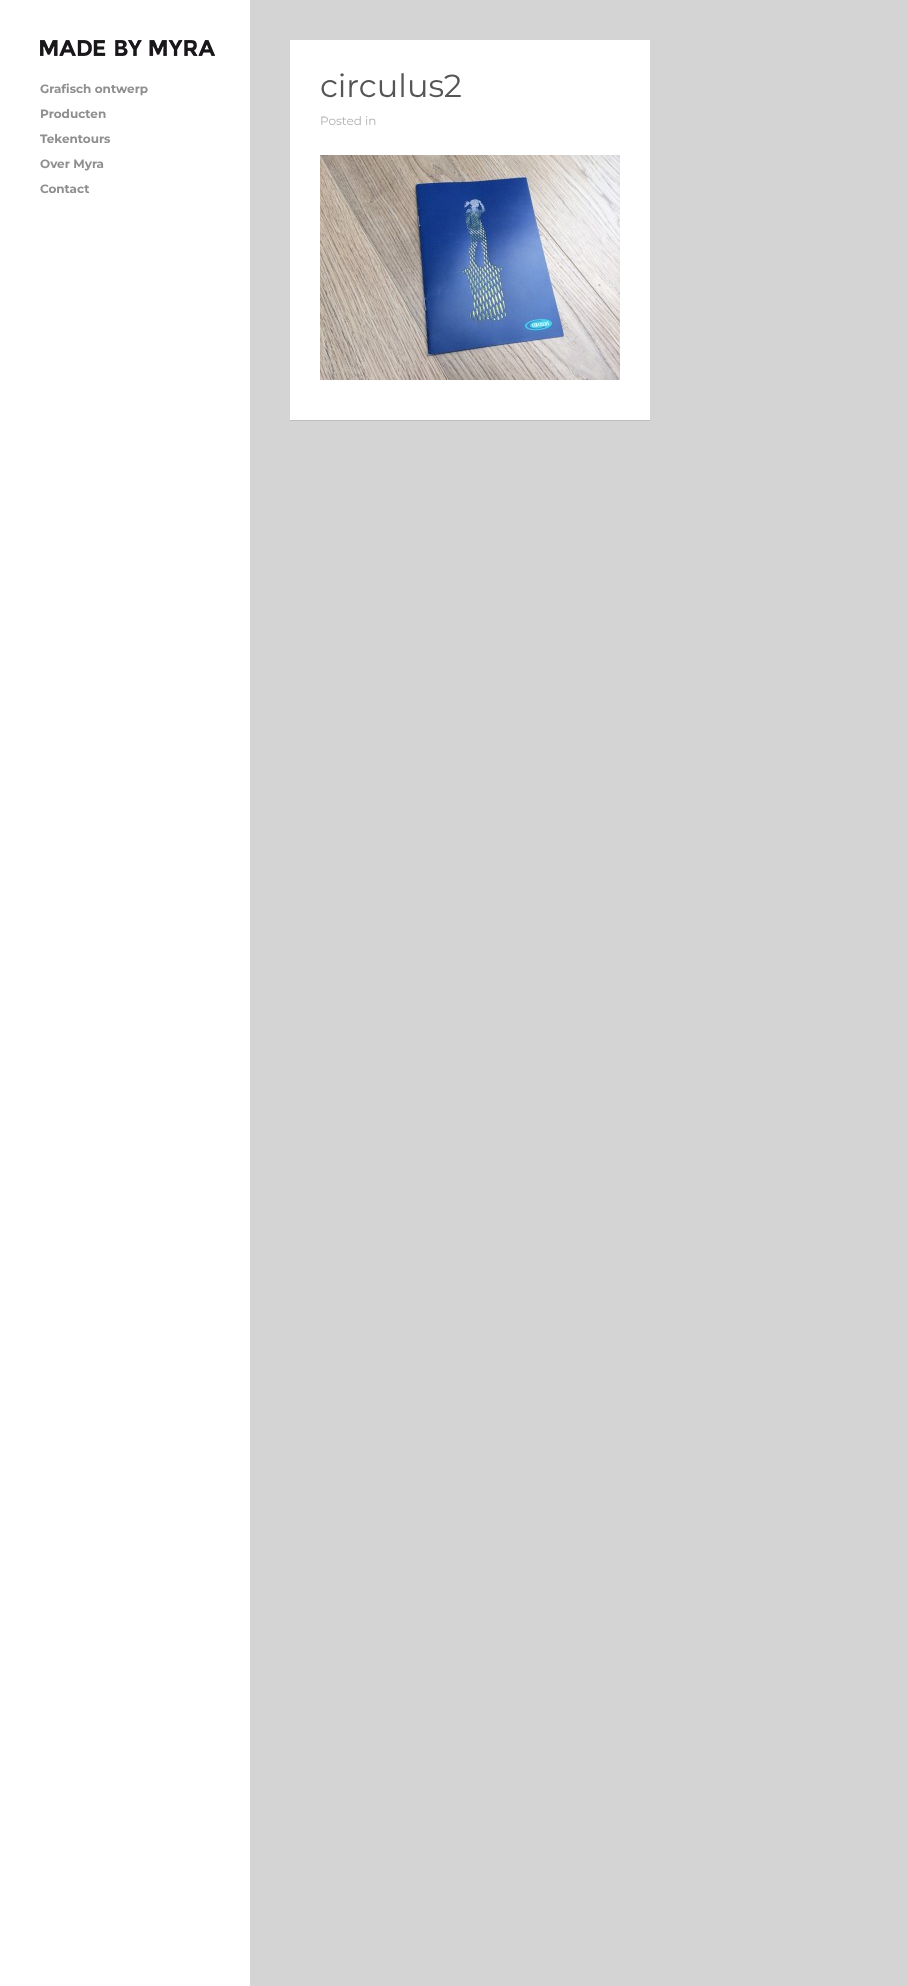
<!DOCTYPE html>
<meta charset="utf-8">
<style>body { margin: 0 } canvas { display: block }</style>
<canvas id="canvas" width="907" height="1986"></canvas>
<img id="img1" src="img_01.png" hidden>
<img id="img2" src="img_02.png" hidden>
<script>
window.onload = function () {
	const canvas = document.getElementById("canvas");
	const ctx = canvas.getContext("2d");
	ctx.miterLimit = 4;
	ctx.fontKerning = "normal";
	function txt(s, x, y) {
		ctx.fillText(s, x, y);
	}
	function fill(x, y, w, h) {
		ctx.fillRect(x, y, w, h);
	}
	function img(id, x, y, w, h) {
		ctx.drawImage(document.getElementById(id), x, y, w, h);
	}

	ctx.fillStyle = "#D4D4D4";
	fill(0, 0, 907, 1986);
	ctx.fillStyle = "#FFFFFF";
	fill(0, 0, 250, 1986);
	img("img1", 40, 40, 175, 16);
	ctx.fillStyle = "rgba(0, 0, 0, 0.1)";
	ctx.filter = "blur(0.5px)";
	ctx.beginPath();
	ctx.rect(290, 41, 360, 380);
	ctx.fill();
	ctx.filter = "none";
	ctx.fillStyle = "#FFFFFF";
	fill(290, 40, 360, 380);
	img("img2", 320, 155, 300, 225);
	ctx.font = "bold 12px Montserrat";
	ctx.fillStyle = "#8F8F8F";
	txt("Grafisch ontwerp", 40, 93);
	txt("Producten", 40, 118);
	txt("Tekentours", 40, 143);
	txt("Over Myra", 40, 168);
	txt("Contact", 40, 193);
	ctx.font = "32px Montserrat";
	ctx.fillStyle = "#555555";
	txt("circulus2", 320, 97);
	ctx.font = "12px Montserrat";
	ctx.fillStyle = "#B0B0AD";
	txt("Posted in", 320, 125);
};
</script>
